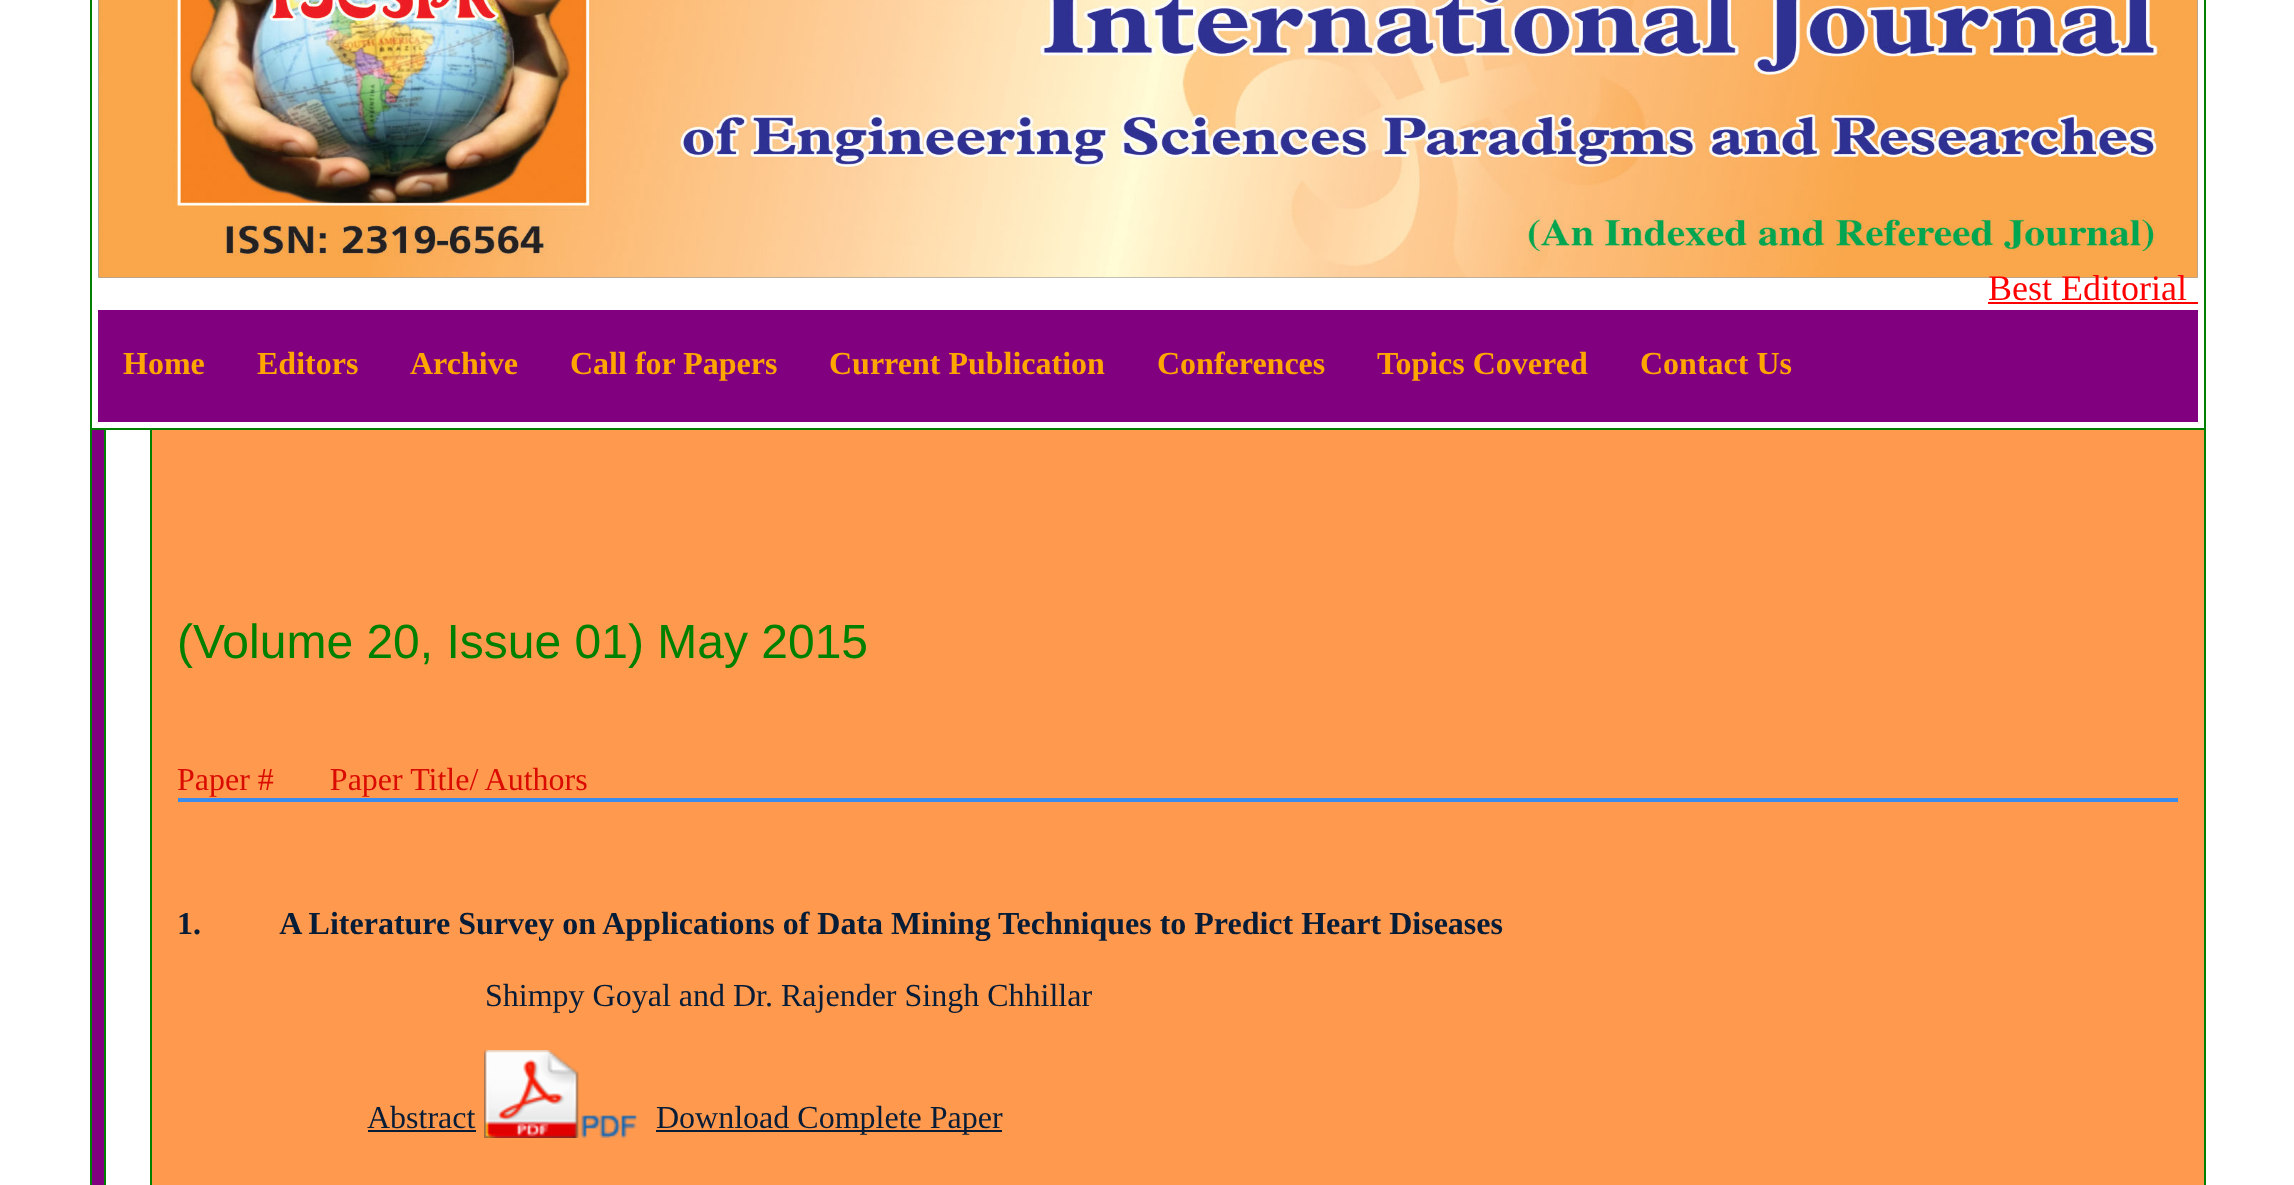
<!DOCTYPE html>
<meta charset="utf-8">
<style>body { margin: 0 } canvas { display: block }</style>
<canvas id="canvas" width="2294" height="1185"></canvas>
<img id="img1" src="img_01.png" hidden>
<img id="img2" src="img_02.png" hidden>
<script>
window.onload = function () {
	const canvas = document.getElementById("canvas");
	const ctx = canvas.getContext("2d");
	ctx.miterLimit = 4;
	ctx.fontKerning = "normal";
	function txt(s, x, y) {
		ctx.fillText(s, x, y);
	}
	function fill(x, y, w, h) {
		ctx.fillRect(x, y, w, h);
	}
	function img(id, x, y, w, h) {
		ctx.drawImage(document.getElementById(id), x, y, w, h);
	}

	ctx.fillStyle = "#FFFFFF";
	fill(0, 0, 2294, 1185);
	ctx.fillStyle = "#008000";
	fill(2204, 0, 2, 1185);
	fill(90, 0, 2, 1185);
	img("img1", 98, 0, 2100, 278);
	ctx.fillStyle = "#FF0000";
	fill(1988, 302, 210, 2);
	ctx.fillStyle = "#800080";
	fill(98, 310, 2100, 112);
	fill(92, 430, 12, 755);
	ctx.fillStyle = "#008000";
	fill(150, 428, 2056, 2);
	fill(150, 428, 2, 757);
	fill(104, 428, 48, 2);
	fill(104, 428, 2, 757);
	fill(90, 428, 16, 2);
	ctx.fillStyle = "#FF994E";
	fill(152, 430, 2052, 755);
	ctx.fillStyle = "#398BEE";
	fill(178, 798, 2000, 4);
	ctx.fillStyle = "#061C37";
	fill(368, 1130, 108, 2);
	img("img2", 484, 1050, 153, 88);
	fill(656, 1130, 346, 2);
	ctx.font = "36px Liberation Serif";
	ctx.fillStyle = "#FF0000";
	txt("Best Editorial", 1988, 300);
	ctx.font = "bold 32px Liberation Serif";
	ctx.fillStyle = "#FFA500";
	txt("Home", 123, 374);
	txt("Editors", 257, 374);
	txt("Archive", 410, 374);
	txt("Call for Papers", 570, 374);
	txt("Current Publication", 829, 374);
	txt("Conferences", 1157, 374);
	txt("Topics Covered", 1377, 374);
	txt("Contact Us", 1640, 374);
	ctx.font = "48px Liberation Sans";
	ctx.fillStyle = "#008000";
	txt("(Volume 20, Issue 01) May 2015", 177, 658);
	ctx.font = "32px Liberation Serif";
	ctx.fillStyle = "#DA0B00";
	txt("Paper #       Paper Title/ Authors", 177, 790);
	ctx.font = "bold 32px Liberation Serif";
	ctx.fillStyle = "#061C37";
	txt("1.          A Literature Survey on Applications of Data Mining Techniques to Predict Heart Diseases", 177, 934);
	ctx.font = "32px Liberation Serif";
	txt("Shimpy Goyal and Dr. Rajender Singh Chhillar", 485, 1006);
	txt("Abstract", 367, 1128);
	txt("Download Complete Paper", 656, 1128);
};
</script>
